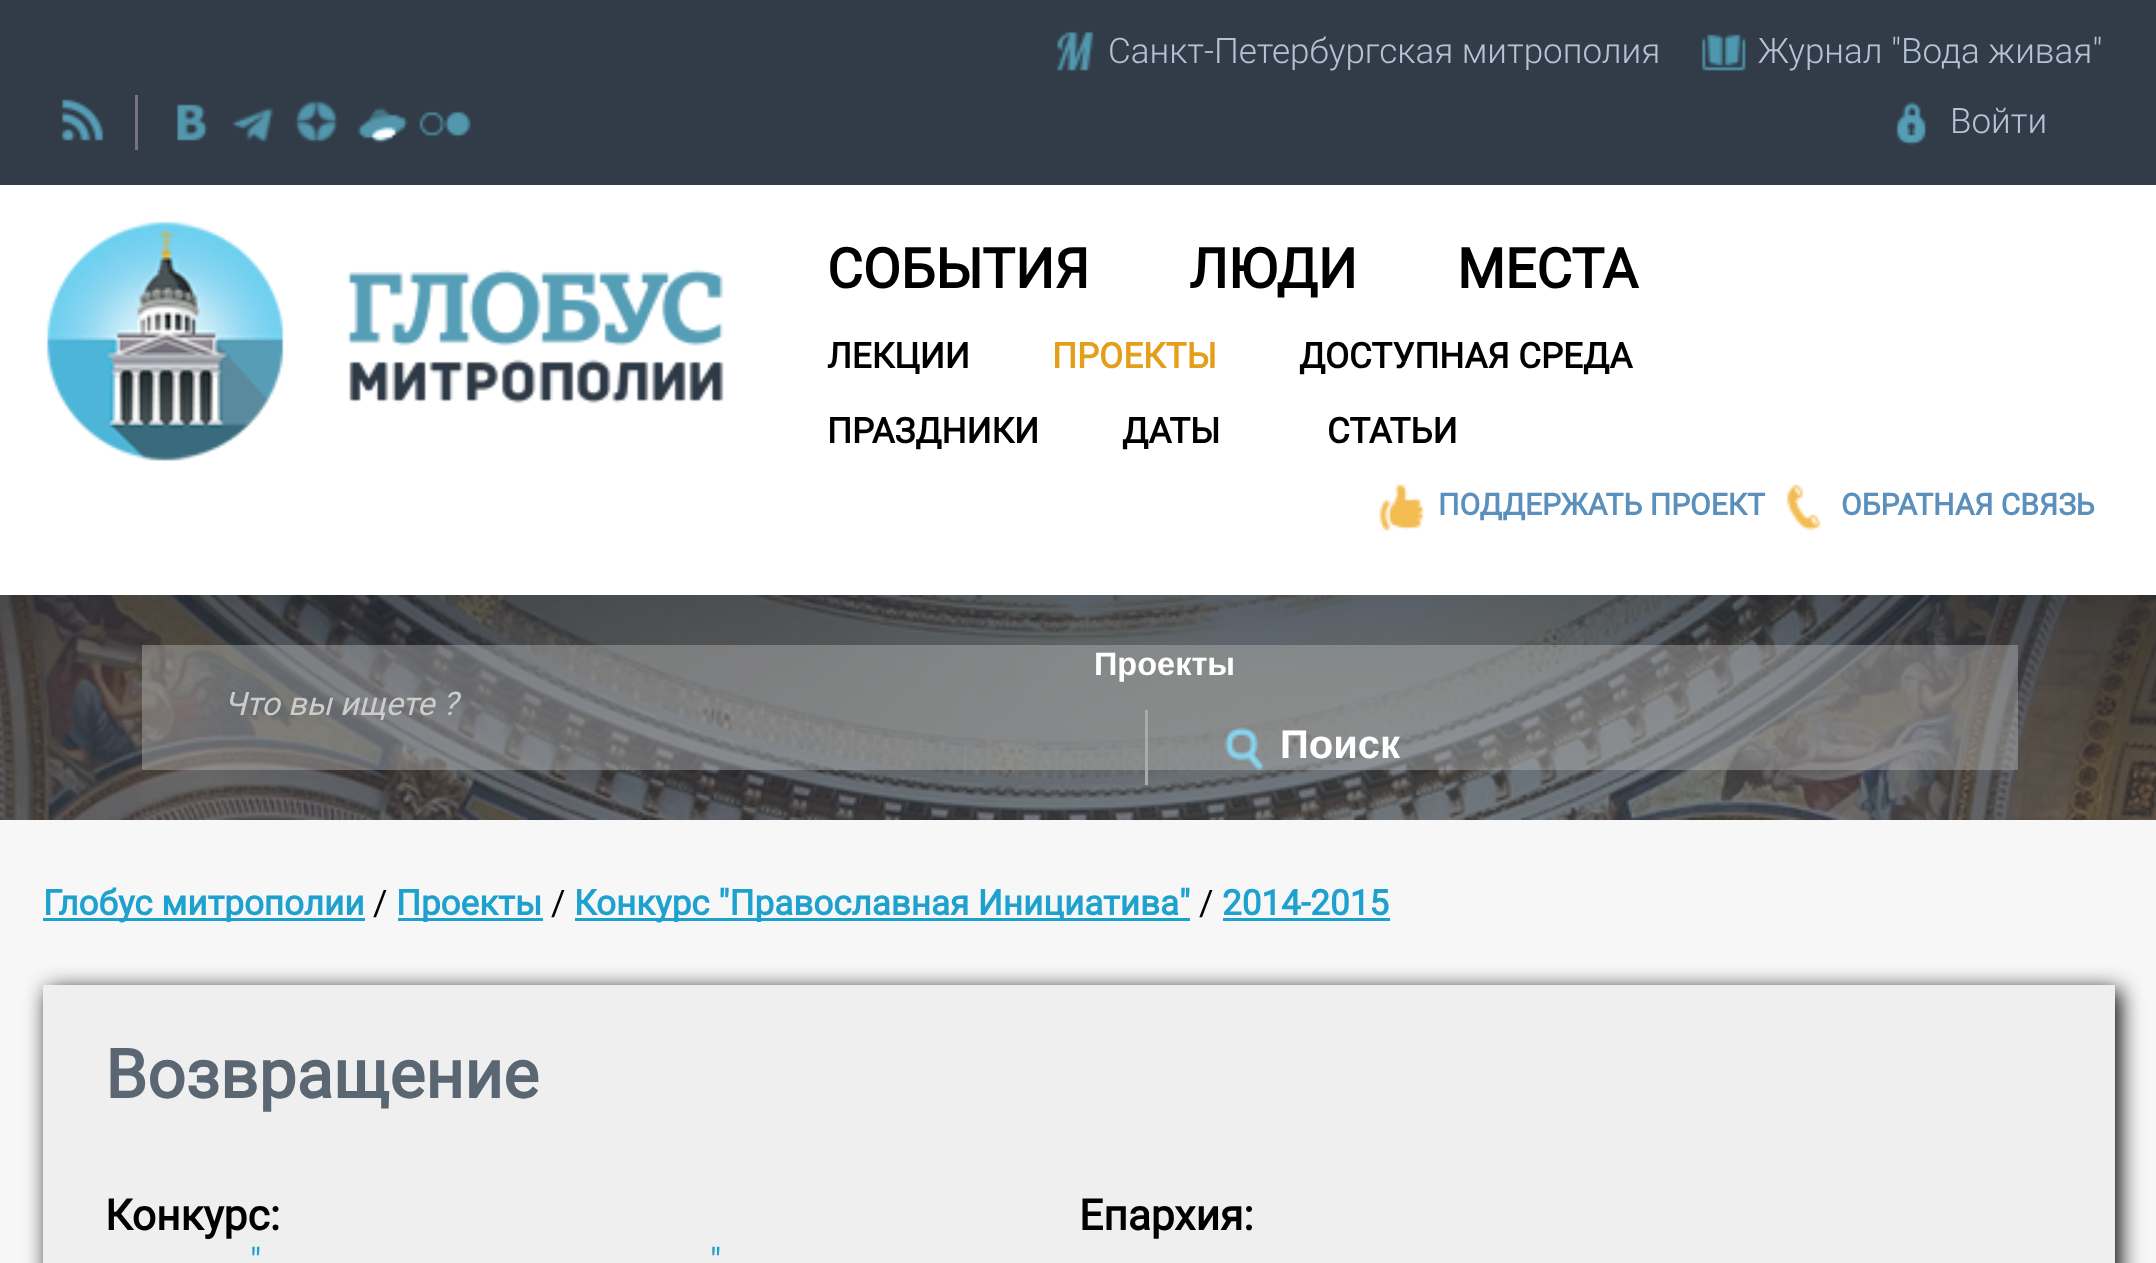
<!DOCTYPE html>
<meta charset="utf-8">
<style>body { margin: 0 } canvas { display: block }</style>
<canvas id="canvas" width="2156" height="1263"></canvas>
<img id="img1" src="img_01.png" hidden>
<img id="img2" src="img_02.png" hidden>
<img id="img3" src="img_03.png" hidden>
<img id="img4" src="img_04.png" hidden>
<img id="img5" src="img_05.png" hidden>
<img id="img6" src="img_06.png" hidden>
<img id="img7" src="img_07.png" hidden>
<img id="img8" src="img_08.png" hidden>
<img id="img9" src="img_09.png" hidden>
<img id="img10" src="img_10.png" hidden>
<img id="img11" src="img_11.png" hidden>
<img id="img12" src="img_12.png" hidden>
<img id="img13" src="img_13.png" hidden>
<img id="img14" src="img_14.png" hidden>
<script>
window.onload = function () {
	const canvas = document.getElementById("canvas");
	const ctx = canvas.getContext("2d");
	ctx.miterLimit = 4;
	ctx.fontKerning = "normal";
	function txt(s, x, y) {
		ctx.fillText(s, x, y);
	}
	function fill(x, y, w, h) {
		ctx.fillRect(x, y, w, h);
	}
	function img(id, x, y, w, h) {
		ctx.drawImage(document.getElementById(id), x, y, w, h);
	}

	ctx.fillStyle = "#FFFFFF";
	fill(0, 0, 2156, 1263);
	ctx.fillStyle = "#323C48";
	fill(0, 0, 2156, 185);
	img("img1", 1056, 31, 38, 40);
	img("img2", 1701, 34, 45, 37);
	img("img3", 61, 99, 43, 42);
	ctx.fillStyle = "#757580";
	fill(135, 95, 3, 55);
	img("img4", 176, 104, 32, 37);
	img("img5", 232, 107, 42, 36);
	img("img6", 295, 100, 43, 43);
	img("img7", 357, 107, 51, 36);
	img("img8", 419, 111, 52, 27);
	img("img9", 1895, 102, 31, 44);
	img("img10", 46, 221, 678, 240);
	img("img11", 1379, 484, 45, 47);
	img("img12", 1786, 484, 35, 47);
	img("img13", 0, 595, 2156, 225);
	ctx.fillStyle = "rgba(182, 182, 182, 0.43)";
	fill(142, 645, 1876, 125);
	ctx.fillStyle = "#AAAAAA";
	fill(1145, 710, 3, 75);
	img("img14", 1224, 727, 40, 44);
	ctx.fillStyle = "#F7F7F7";
	fill(0, 820, 2156, 443);
	ctx.fillStyle = "#1EA1CE";
	fill(43, 918, 322, 3);
	fill(398, 918, 145, 3);
	fill(575, 918, 615, 3);
	fill(1223, 918, 167, 3);
	ctx.fillStyle = "#000000";
	ctx.filter = "blur(11px)";
	ctx.beginPath();
	ctx.rect(48, 990, 2072, 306);
	ctx.fill();
	ctx.filter = "none";
	ctx.fillStyle = "#EFEFEF";
	fill(43, 985, 2072, 278);
	ctx.font = "300 35px Roboto";
	ctx.fillStyle = "#B3C3D6";
	txt("Санкт-Петербургская митрополия", 1108, 63);
	txt("Журнал \"Вода живая\"", 1758, 63);
	txt("Войти", 1950, 133);
	ctx.font = "bold 55px Roboto";
	ctx.fillStyle = "#000000";
	txt("СОБЫТИЯ", 827, 288);
	txt("ЛЮДИ", 1189, 288);
	txt("МЕСТА", 1457, 288);
	ctx.font = "bold 35px Roboto";
	txt("ЛЕКЦИИ", 827, 368);
	ctx.fillStyle = "#E49F1A";
	txt("ПРОЕКТЫ", 1052, 368);
	ctx.fillStyle = "#000000";
	txt("ДОСТУПНАЯ СРЕДА", 1299, 368);
	txt("ПРАЗДНИКИ", 827, 443);
	txt("ДАТЫ", 1122, 443);
	txt("СТАТЬИ", 1327, 443);
	ctx.font = "bold 30px Roboto";
	ctx.fillStyle = "#5A90BB";
	txt("ПОДДЕРЖАТЬ ПРОЕКТ", 1438, 515);
	txt("ОБРАТНАЯ СВЯЗЬ", 1841, 515);
	ctx.font = "bold 32.5px Liberation Sans";
	ctx.fillStyle = "#FFFFFF";
	txt("Проекты", 1094, 675);
	ctx.font = "italic 32.5px Roboto";
	ctx.fillStyle = "#CCCCCC";
	txt("Что вы ищете ?", 224, 715);
	ctx.font = "bold 40px Liberation Sans";
	ctx.fillStyle = "#FFFFFF";
	txt("Поиск", 1280, 758);
	ctx.font = "bold 35px Roboto";
	ctx.fillStyle = "#1EA1CE";
	txt("Глобус митрополии", 43, 915);
	ctx.font = "35px Roboto";
	ctx.fillStyle = "#000000";
	txt("/", 373, 915);
	ctx.font = "bold 35px Roboto";
	ctx.fillStyle = "#1EA1CE";
	txt("Проекты", 396, 915);
	ctx.font = "35px Roboto";
	ctx.fillStyle = "#000000";
	txt("/", 551, 915);
	ctx.font = "bold 35px Roboto";
	ctx.fillStyle = "#1EA1CE";
	txt("Конкурс \"Православная Инициатива\"", 574, 915);
	ctx.font = "35px Roboto";
	ctx.fillStyle = "#000000";
	txt("/", 1199, 915);
	ctx.font = "bold 35px Roboto";
	ctx.fillStyle = "#1EA1CE";
	txt("2014-2015", 1222, 915);
	ctx.font = "bold 67.5px Roboto";
	ctx.fillStyle = "#5A6773";
	txt("Возвращение", 105, 1098);
	ctx.font = "bold 42.5px Roboto";
	ctx.fillStyle = "#000000";
	txt("Конкурс:", 105, 1230);
	ctx.font = "35px Roboto";
	ctx.fillStyle = "#1EA1CE";
	txt("\"", 250, 1273);
	txt("\"", 710, 1273);
	ctx.font = "bold 42.5px Roboto";
	ctx.fillStyle = "#000000";
	txt("Епархия:", 1079, 1230);
};
</script>
